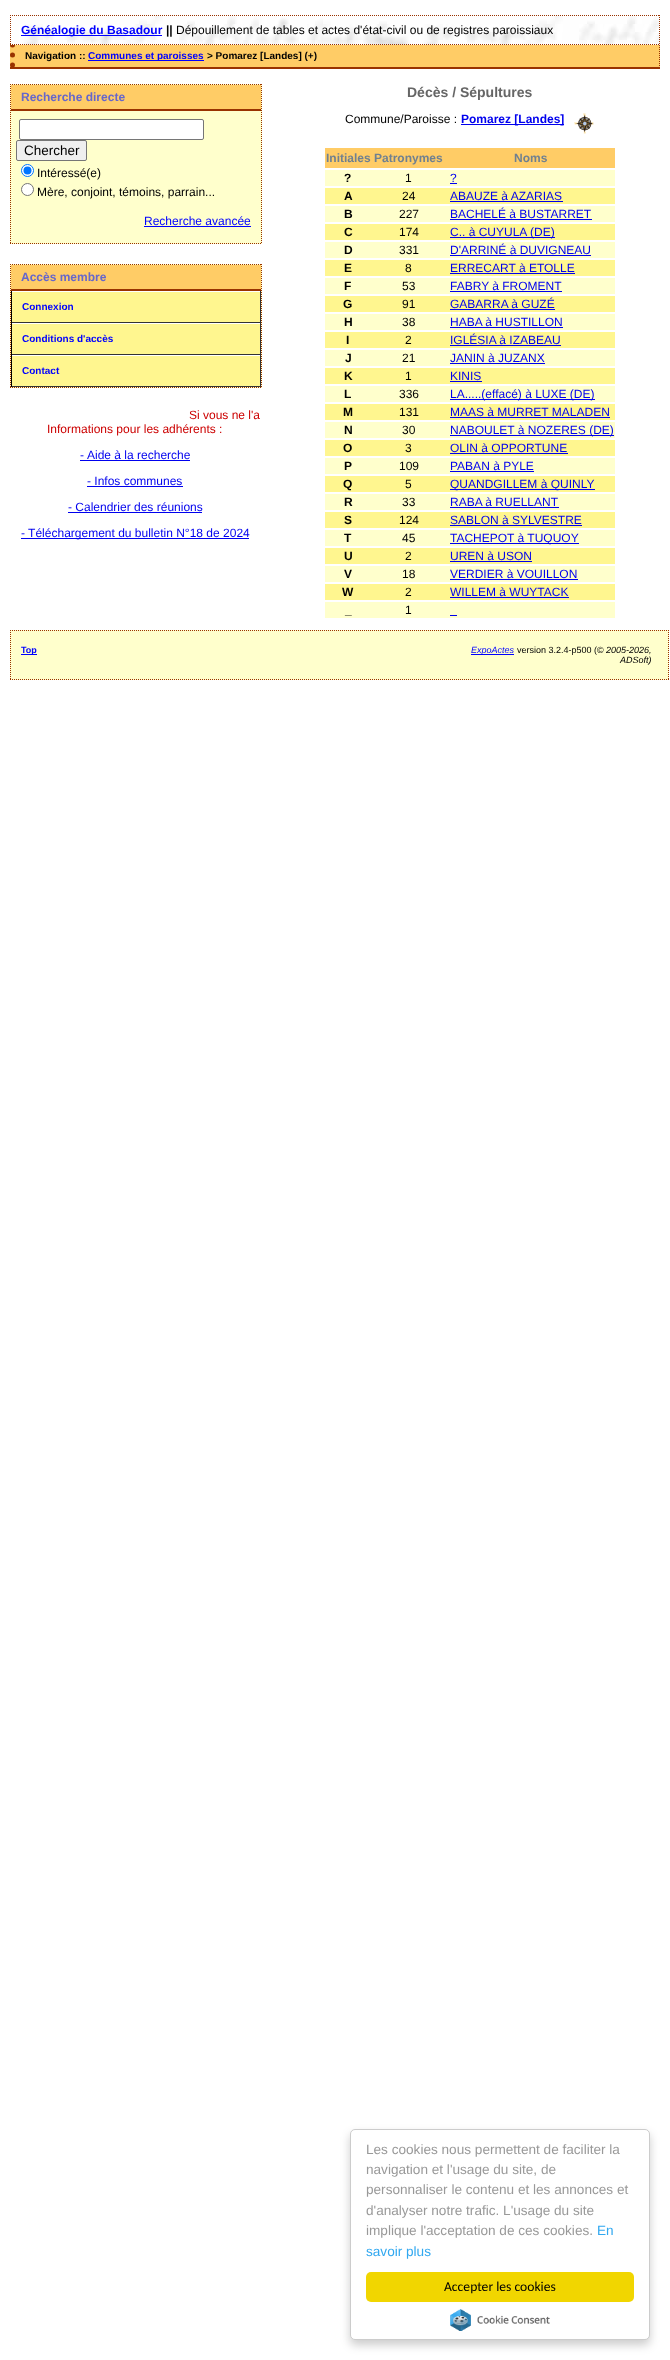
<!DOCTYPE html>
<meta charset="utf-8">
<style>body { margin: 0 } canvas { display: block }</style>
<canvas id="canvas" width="670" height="2360"></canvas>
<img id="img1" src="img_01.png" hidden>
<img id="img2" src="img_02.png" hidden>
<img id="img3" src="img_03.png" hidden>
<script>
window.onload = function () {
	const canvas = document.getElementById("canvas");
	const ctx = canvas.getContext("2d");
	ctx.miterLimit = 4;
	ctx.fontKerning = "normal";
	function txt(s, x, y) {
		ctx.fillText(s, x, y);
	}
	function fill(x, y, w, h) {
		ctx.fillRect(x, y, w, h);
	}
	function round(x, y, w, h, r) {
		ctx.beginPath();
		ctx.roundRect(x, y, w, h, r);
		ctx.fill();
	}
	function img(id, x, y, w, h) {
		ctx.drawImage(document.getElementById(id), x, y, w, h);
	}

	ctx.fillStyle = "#FFFFFF";
	fill(0, 0, 670, 2360);
	ctx.fillStyle = "#FFCC66";
	fill(10, 45, 650, 22);
	ctx.beginPath();
	ctx.moveTo(659.5, 45);
	ctx.lineTo(659.5, 69);
	ctx.strokeStyle = "#993300";
	ctx.setLineDash([1, 1]);
	ctx.stroke();
	ctx.fillStyle = "#993300";
	fill(10, 67, 650, 2);
	ctx.beginPath();
	ctx.moveTo(12.5, 45);
	ctx.lineTo(12.5, 69);
	ctx.lineWidth = 5;
	ctx.lineCap = "round";
	ctx.setLineDash([0, 10]);
	ctx.stroke();
	img("img1", 10, 15, 650, 30);
	ctx.beginPath();
	ctx.moveTo(10, 15.5);
	ctx.lineTo(660, 15.5);
	ctx.lineWidth = 1;
	ctx.lineCap = "butt";
	ctx.setLineDash([1, 1]);
	ctx.stroke();
	ctx.beginPath();
	ctx.moveTo(659.5, 15);
	ctx.lineTo(659.5, 45);
	ctx.stroke();
	ctx.beginPath();
	ctx.moveTo(10, 44.5);
	ctx.lineTo(660, 44.5);
	ctx.stroke();
	ctx.beginPath();
	ctx.moveTo(10.5, 15);
	ctx.lineTo(10.5, 45);
	ctx.stroke();
	ctx.fillStyle = "#0000FF";
	fill(21, 35, 141, 1);
	fill(88, 60, 116, 1);
	ctx.fillStyle = "#FFFFCC";
	fill(10, 84, 252, 160);
	ctx.beginPath();
	ctx.moveTo(10, 84.5);
	ctx.lineTo(262, 84.5);
	ctx.stroke();
	ctx.beginPath();
	ctx.moveTo(261.5, 84);
	ctx.lineTo(261.5, 244);
	ctx.stroke();
	ctx.beginPath();
	ctx.moveTo(10, 243.5);
	ctx.lineTo(262, 243.5);
	ctx.stroke();
	ctx.beginPath();
	ctx.moveTo(10.5, 84);
	ctx.lineTo(10.5, 244);
	ctx.stroke();
	ctx.fillStyle = "#FFCC66";
	fill(11, 85, 250, 24);
	ctx.fillStyle = "#993300";
	fill(11, 109, 250, 2);
	ctx.fillStyle = "#FFFFFF";
	ctx.beginPath();
	ctx.roundRect(19.5, 119.5, 184, 20, 1.5);
	ctx.fill();
	ctx.strokeStyle = "#767676";
	ctx.setLineDash([]);
	ctx.stroke();
	ctx.fillStyle = "#EFEFEF";
	ctx.beginPath();
	ctx.roundRect(16.5, 140.5, 70, 20, 1.5);
	ctx.fill();
	ctx.stroke();
	ctx.fillStyle = "#FFFFFF";
	ctx.beginPath();
	ctx.arc(27.5, 170.5, 6, 0, Math.PI * 2);
	ctx.fill();
	ctx.strokeStyle = "#0075FF";
	ctx.stroke();
	ctx.fillStyle = "#0075FF";
	ctx.beginPath();
	ctx.arc(27.5, 170.5, 4, 0, Math.PI * 2);
	ctx.fill();
	ctx.fillStyle = "#FFFFFF";
	ctx.beginPath();
	ctx.arc(27.5, 189.5, 6, 0, Math.PI * 2);
	ctx.fill();
	ctx.strokeStyle = "#767676";
	ctx.stroke();
	ctx.fillStyle = "#0000FF";
	fill(144, 226, 107, 1);
	ctx.fillStyle = "#FFFFCC";
	fill(10, 264, 252, 124);
	ctx.beginPath();
	ctx.moveTo(10, 264.5);
	ctx.lineTo(262, 264.5);
	ctx.strokeStyle = "#993300";
	ctx.setLineDash([1, 1]);
	ctx.stroke();
	ctx.beginPath();
	ctx.moveTo(261.5, 264);
	ctx.lineTo(261.5, 388);
	ctx.stroke();
	ctx.beginPath();
	ctx.moveTo(10, 387.5);
	ctx.lineTo(262, 387.5);
	ctx.stroke();
	ctx.beginPath();
	ctx.moveTo(10.5, 264);
	ctx.lineTo(10.5, 388);
	ctx.stroke();
	ctx.fillStyle = "#FFCC66";
	fill(11, 265, 250, 24);
	ctx.fillStyle = "#993300";
	fill(11, 289, 250, 2);
	ctx.fillStyle = "#FFF68F";
	fill(12, 292, 248, 30);
	ctx.fillStyle = "#FFFFFF";
	fill(11, 291, 250, 1);
	ctx.fillStyle = "#333333";
	fill(260, 291, 1, 32);
	fill(11, 322, 250, 1);
	ctx.fillStyle = "#000000";
	fill(11, 291, 1, 32);
	ctx.fillStyle = "#FFF68F";
	fill(12, 324, 248, 30);
	ctx.fillStyle = "#FFFFFF";
	fill(11, 323, 250, 1);
	ctx.fillStyle = "#333333";
	fill(260, 323, 1, 32);
	fill(11, 354, 250, 1);
	ctx.fillStyle = "#000000";
	fill(11, 323, 1, 32);
	ctx.fillStyle = "#FFF68F";
	fill(12, 356, 248, 30);
	ctx.fillStyle = "#FFFFFF";
	fill(11, 355, 250, 1);
	ctx.fillStyle = "#333333";
	fill(260, 355, 1, 32);
	fill(11, 386, 250, 1);
	ctx.fillStyle = "#000000";
	fill(11, 355, 1, 32);
	ctx.fillStyle = "#0000EE";
	fill(80, 460, 110, 1);
	fill(87, 486, 96, 1);
	fill(68, 512, 134, 1);
	fill(21, 538, 228, 1);
	fill(461, 124, 103, 1);
	img("img2", 574, 113, 20, 21);
	ctx.fillStyle = "#FFCC66";
	fill(325, 148, 290, 20);
	ctx.fillStyle = "#FFFFCC";
	fill(325, 170, 290, 16);
	ctx.fillStyle = "#0000EE";
	fill(450, 183, 7, 1);
	ctx.fillStyle = "#FFF68F";
	fill(325, 188, 290, 16);
	ctx.fillStyle = "#0000EE";
	fill(450, 201, 113, 1);
	ctx.fillStyle = "#FFFFCC";
	fill(325, 206, 290, 16);
	ctx.fillStyle = "#0000EE";
	fill(450, 219, 142, 1);
	ctx.fillStyle = "#FFF68F";
	fill(325, 224, 290, 16);
	ctx.fillStyle = "#0000EE";
	fill(450, 237, 105, 1);
	ctx.fillStyle = "#FFFFCC";
	fill(325, 242, 290, 16);
	ctx.fillStyle = "#0000EE";
	fill(450, 255, 141, 1);
	ctx.fillStyle = "#FFF68F";
	fill(325, 260, 290, 16);
	ctx.fillStyle = "#0000EE";
	fill(450, 273, 125, 1);
	ctx.fillStyle = "#FFFFCC";
	fill(325, 278, 290, 16);
	ctx.fillStyle = "#0000EE";
	fill(450, 291, 112, 1);
	ctx.fillStyle = "#FFF68F";
	fill(325, 296, 290, 16);
	ctx.fillStyle = "#0000EE";
	fill(450, 309, 105, 1);
	ctx.fillStyle = "#FFFFCC";
	fill(325, 314, 290, 16);
	ctx.fillStyle = "#0000EE";
	fill(450, 327, 113, 1);
	ctx.fillStyle = "#FFF68F";
	fill(325, 332, 290, 16);
	ctx.fillStyle = "#0000EE";
	fill(450, 345, 111, 1);
	ctx.fillStyle = "#FFFFCC";
	fill(325, 350, 290, 16);
	ctx.fillStyle = "#0000EE";
	fill(450, 363, 95, 1);
	ctx.fillStyle = "#FFF68F";
	fill(325, 368, 290, 16);
	ctx.fillStyle = "#0000EE";
	fill(450, 381, 32, 1);
	ctx.fillStyle = "#FFFFCC";
	fill(325, 386, 290, 16);
	ctx.fillStyle = "#0000EE";
	fill(450, 399, 145, 1);
	ctx.fillStyle = "#FFF68F";
	fill(325, 404, 290, 16);
	ctx.fillStyle = "#0000EE";
	fill(450, 417, 160, 1);
	ctx.fillStyle = "#FFFFCC";
	fill(325, 422, 290, 16);
	ctx.fillStyle = "#0000EE";
	fill(450, 435, 164, 1);
	ctx.fillStyle = "#FFF68F";
	fill(325, 440, 290, 16);
	ctx.fillStyle = "#0000EE";
	fill(450, 453, 118, 1);
	ctx.fillStyle = "#FFFFCC";
	fill(325, 458, 290, 16);
	ctx.fillStyle = "#0000EE";
	fill(450, 471, 84, 1);
	ctx.fillStyle = "#FFF68F";
	fill(325, 476, 290, 16);
	ctx.fillStyle = "#0000EE";
	fill(450, 489, 145, 1);
	ctx.fillStyle = "#FFFFCC";
	fill(325, 494, 290, 16);
	ctx.fillStyle = "#0000EE";
	fill(450, 507, 109, 1);
	ctx.fillStyle = "#FFF68F";
	fill(325, 512, 290, 16);
	ctx.fillStyle = "#0000EE";
	fill(450, 525, 132, 1);
	ctx.fillStyle = "#FFFFCC";
	fill(325, 530, 290, 16);
	ctx.fillStyle = "#0000EE";
	fill(450, 543, 129, 1);
	ctx.fillStyle = "#FFF68F";
	fill(325, 548, 290, 16);
	ctx.fillStyle = "#0000EE";
	fill(450, 561, 82, 1);
	ctx.fillStyle = "#FFFFCC";
	fill(325, 566, 290, 16);
	ctx.fillStyle = "#0000EE";
	fill(450, 579, 128, 1);
	ctx.fillStyle = "#FFF68F";
	fill(325, 584, 290, 16);
	ctx.fillStyle = "#0000EE";
	fill(450, 597, 119, 1);
	ctx.fillStyle = "#FFFFCC";
	fill(325, 602, 290, 16);
	ctx.fillStyle = "#0000EE";
	fill(450, 615, 7, 1);
	ctx.fillStyle = "#FFFFCC";
	fill(10, 630, 659, 50);
	ctx.beginPath();
	ctx.moveTo(10, 630.5);
	ctx.lineTo(669, 630.5);
	ctx.stroke();
	ctx.beginPath();
	ctx.moveTo(668.5, 630);
	ctx.lineTo(668.5, 680);
	ctx.stroke();
	ctx.beginPath();
	ctx.moveTo(10, 679.5);
	ctx.lineTo(669, 679.5);
	ctx.stroke();
	ctx.beginPath();
	ctx.moveTo(10.5, 630);
	ctx.lineTo(10.5, 680);
	ctx.stroke();
	ctx.fillStyle = "#0000FF";
	fill(21, 654, 16, 1);
	fill(471, 654, 43, 1);
	ctx.fillStyle = "rgba(0, 0, 0, 0.2)";
	ctx.filter = "blur(5px)";
	ctx.beginPath();
	ctx.roundRect(350, 2134, 300, 211, 5);
	ctx.fill();
	ctx.filter = "none";
	ctx.fillStyle = "#FFFFFF";
	ctx.beginPath();
	ctx.roundRect(350.5, 2129.5, 299, 210, 4.5);
	ctx.fill();
	ctx.strokeStyle = "#CCCCCC";
	ctx.setLineDash([]);
	ctx.stroke();
	ctx.fillStyle = "#F1D600";
	round(366, 2272, 268, 30, 5);
	img("img3", 450, 2309, 100, 22);
	ctx.font = "bold 12px Liberation Sans";
	ctx.fillStyle = "#0000FF";
	txt("Généalogie du Basadour", 21, 34);
	ctx.fillStyle = "#000000";
	txt("||", 166, 34);
	ctx.font = "12px Liberation Sans";
	txt("Dépouillement de tables et actes d'état-civil ou de registres paroissiaux", 176, 34);
	ctx.font = "bold 10px Liberation Sans";
	txt("Navigation ::", 25, 59);
	ctx.fillStyle = "#0000FF";
	txt("Communes et paroisses", 88, 59);
	ctx.fillStyle = "#000000";
	txt("> Pomarez [Landes] (+)", 207, 59);
	ctx.font = "bold 12px Liberation Sans";
	ctx.fillStyle = "#6666CC";
	txt("Recherche directe", 21, 101);
	ctx.font = "13.5px Liberation Sans";
	ctx.fillStyle = "#000000";
	txt("Chercher", 24, 155);
	ctx.font = "12px Liberation Sans";
	txt("Intéressé(e)", 37, 177);
	txt("Mère, conjoint, témoins, parrain...", 37, 196);
	ctx.fillStyle = "#0000FF";
	txt("Recherche avancée", 144, 225);
	ctx.font = "bold 12px Liberation Sans";
	ctx.fillStyle = "#6666CC";
	txt("Accès membre", 21, 281);
	ctx.font = "bold 10px Liberation Sans";
	ctx.fillStyle = "#0000FF";
	txt("Connexion", 22, 310);
	txt("Conditions d'accès", 22, 342);
	txt("Contact", 22, 374);
	ctx.font = "12px Liberation Sans";
	ctx.fillStyle = "#CC0000";
	txt("Si vous ne l'a", 189, 419);
	txt("Informations pour les adhérents :", 47, 433);
	ctx.fillStyle = "#0000EE";
	txt("-", 80, 459);
	txt("Aide à la recherche", 87, 459);
	txt("- Infos communes", 87, 485);
	txt("- Calendrier des réunions", 68, 511);
	txt("- Téléchargement du bulletin N°18 de 2024", 21, 537);
	ctx.font = "bold 14px Liberation Sans";
	ctx.fillStyle = "#666666";
	txt("Décès / Sépultures", 407, 97);
	ctx.font = "12px Liberation Sans";
	ctx.fillStyle = "#000000";
	txt("Commune/Paroisse :", 345, 123);
	ctx.font = "bold 12px Liberation Sans";
	ctx.fillStyle = "#0000EE";
	txt("Pomarez [Landes]", 461, 123);
	ctx.fillStyle = "#708090";
	txt("Initiales", 326, 162);
	txt("Patronymes", 374, 162);
	txt("Noms", 514, 162);
	ctx.fillStyle = "#000000";
	txt("?", 344, 182);
	ctx.font = "12px Liberation Sans";
	txt("1", 405, 182);
	ctx.fillStyle = "#0000EE";
	txt("?", 450, 182);
	ctx.font = "bold 12px Liberation Sans";
	ctx.fillStyle = "#000000";
	txt("A", 344, 200);
	ctx.font = "12px Liberation Sans";
	txt("24", 402, 200);
	ctx.fillStyle = "#0000EE";
	txt("ABAUZE à AZARIAS", 450, 200);
	ctx.font = "bold 12px Liberation Sans";
	ctx.fillStyle = "#000000";
	txt("B", 344, 218);
	ctx.font = "12px Liberation Sans";
	txt("227", 399, 218);
	ctx.fillStyle = "#0000EE";
	txt("BACHELÉ à BUSTARRET", 450, 218);
	ctx.font = "bold 12px Liberation Sans";
	ctx.fillStyle = "#000000";
	txt("C", 344, 236);
	ctx.font = "12px Liberation Sans";
	txt("174", 399, 236);
	ctx.fillStyle = "#0000EE";
	txt("C.. à CUYULA (DE)", 450, 236);
	ctx.font = "bold 12px Liberation Sans";
	ctx.fillStyle = "#000000";
	txt("D", 344, 254);
	ctx.font = "12px Liberation Sans";
	txt("331", 399, 254);
	ctx.fillStyle = "#0000EE";
	txt("D'ARRINÉ à DUVIGNEAU", 450, 254);
	ctx.font = "bold 12px Liberation Sans";
	ctx.fillStyle = "#000000";
	txt("E", 344, 272);
	ctx.font = "12px Liberation Sans";
	txt("8", 405, 272);
	ctx.fillStyle = "#0000EE";
	txt("ERRECART à ETOLLE", 450, 272);
	ctx.font = "bold 12px Liberation Sans";
	ctx.fillStyle = "#000000";
	txt("F", 344, 290);
	ctx.font = "12px Liberation Sans";
	txt("53", 402, 290);
	ctx.fillStyle = "#0000EE";
	txt("FABRY à FROMENT", 450, 290);
	ctx.font = "bold 12px Liberation Sans";
	ctx.fillStyle = "#000000";
	txt("G", 343, 308);
	ctx.font = "12px Liberation Sans";
	txt("91", 402, 308);
	ctx.fillStyle = "#0000EE";
	txt("GABARRA à GUZÉ", 450, 308);
	ctx.font = "bold 12px Liberation Sans";
	ctx.fillStyle = "#000000";
	txt("H", 344, 326);
	ctx.font = "12px Liberation Sans";
	txt("38", 402, 326);
	ctx.fillStyle = "#0000EE";
	txt("HABA à HUSTILLON", 450, 326);
	ctx.font = "bold 12px Liberation Sans";
	ctx.fillStyle = "#000000";
	txt("I", 346, 344);
	ctx.font = "12px Liberation Sans";
	txt("2", 405, 344);
	ctx.fillStyle = "#0000EE";
	txt("IGLÉSIA à IZABEAU", 450, 344);
	ctx.font = "bold 12px Liberation Sans";
	ctx.fillStyle = "#000000";
	txt("J", 345, 362);
	ctx.font = "12px Liberation Sans";
	txt("21", 402, 362);
	ctx.fillStyle = "#0000EE";
	txt("JANIN à JUZANX", 450, 362);
	ctx.font = "bold 12px Liberation Sans";
	ctx.fillStyle = "#000000";
	txt("K", 344, 380);
	ctx.font = "12px Liberation Sans";
	txt("1", 405, 380);
	ctx.fillStyle = "#0000EE";
	txt("KINIS", 450, 380);
	ctx.font = "bold 12px Liberation Sans";
	ctx.fillStyle = "#000000";
	txt("L", 344, 398);
	ctx.font = "12px Liberation Sans";
	txt("336", 399, 398);
	ctx.fillStyle = "#0000EE";
	txt("LA.....(effacé) à LUXE (DE)", 450, 398);
	ctx.font = "bold 12px Liberation Sans";
	ctx.fillStyle = "#000000";
	txt("M", 343, 416);
	ctx.font = "12px Liberation Sans";
	txt("131", 399, 416);
	ctx.fillStyle = "#0000EE";
	txt("MAAS à MURRET MALADEN", 450, 416);
	ctx.font = "bold 12px Liberation Sans";
	ctx.fillStyle = "#000000";
	txt("N", 344, 434);
	ctx.font = "12px Liberation Sans";
	txt("30", 402, 434);
	ctx.fillStyle = "#0000EE";
	txt("NABOULET à NOZERES (DE)", 450, 434);
	ctx.font = "bold 12px Liberation Sans";
	ctx.fillStyle = "#000000";
	txt("O", 343, 452);
	ctx.font = "12px Liberation Sans";
	txt("3", 405, 452);
	ctx.fillStyle = "#0000EE";
	txt("OLIN à OPPORTUNE", 450, 452);
	ctx.font = "bold 12px Liberation Sans";
	ctx.fillStyle = "#000000";
	txt("P", 344, 470);
	ctx.font = "12px Liberation Sans";
	txt("109", 399, 470);
	ctx.fillStyle = "#0000EE";
	txt("PABAN à PYLE", 450, 470);
	ctx.font = "bold 12px Liberation Sans";
	ctx.fillStyle = "#000000";
	txt("Q", 343, 488);
	ctx.font = "12px Liberation Sans";
	txt("5", 405, 488);
	ctx.fillStyle = "#0000EE";
	txt("QUANDGILLEM à QUINLY", 450, 488);
	ctx.font = "bold 12px Liberation Sans";
	ctx.fillStyle = "#000000";
	txt("R", 344, 506);
	ctx.font = "12px Liberation Sans";
	txt("33", 402, 506);
	ctx.fillStyle = "#0000EE";
	txt("RABA à RUELLANT", 450, 506);
	ctx.font = "bold 12px Liberation Sans";
	ctx.fillStyle = "#000000";
	txt("S", 344, 524);
	ctx.font = "12px Liberation Sans";
	txt("124", 399, 524);
	ctx.fillStyle = "#0000EE";
	txt("SABLON à SYLVESTRE", 450, 524);
	ctx.font = "bold 12px Liberation Sans";
	ctx.fillStyle = "#000000";
	txt("T", 344, 542);
	ctx.font = "12px Liberation Sans";
	txt("45", 402, 542);
	ctx.fillStyle = "#0000EE";
	txt("TACHEPOT à TUQUOY", 450, 542);
	ctx.font = "bold 12px Liberation Sans";
	ctx.fillStyle = "#000000";
	txt("U", 344, 560);
	ctx.font = "12px Liberation Sans";
	txt("2", 405, 560);
	ctx.fillStyle = "#0000EE";
	txt("UREN à USON", 450, 560);
	ctx.font = "bold 12px Liberation Sans";
	ctx.fillStyle = "#000000";
	txt("V", 344, 578);
	ctx.font = "12px Liberation Sans";
	txt("18", 402, 578);
	ctx.fillStyle = "#0000EE";
	txt("VERDIER à VOUILLON", 450, 578);
	ctx.font = "bold 12px Liberation Sans";
	ctx.fillStyle = "#000000";
	txt("W", 342, 596);
	ctx.font = "12px Liberation Sans";
	txt("2", 405, 596);
	ctx.fillStyle = "#0000EE";
	txt("WILLEM à WUYTACK", 450, 596);
	ctx.fillStyle = "#000000";
	txt("1", 405, 614);
	ctx.font = "bold 12px Liberation Sans";
	txt("_", 345, 614);
	ctx.font = "bold 9px Liberation Sans";
	ctx.fillStyle = "#0000FF";
	txt("Top", 21, 653);
	ctx.font = "italic 9px Liberation Sans";
	txt("ExpoActes", 471, 653);
	ctx.font = "9px Liberation Sans";
	ctx.fillStyle = "#000000";
	txt("version 3.2.4-p500 (©", 517, 653);
	ctx.font = "italic 9px Liberation Sans";
	txt("2005-2026,", 606, 653);
	txt("ADSoft)", 620, 663);
	ctx.font = "13.6px Liberation Sans";
	ctx.fillStyle = "#999999";
	txt("Les cookies nous permettent de faciliter la", 366, 2154);
	txt("navigation et l'usage du site, de", 366, 2174);
	txt("personnaliser le contenu et les annonces et", 366, 2194);
	txt("d'analyser notre trafic. L'usage du site", 366, 2215);
	txt("implique l'acceptation de ces cookies.", 366, 2235);
	ctx.fillStyle = "#31A8F0";
	txt("En", 597, 2235);
	txt("savoir plus", 366, 2256);
	ctx.font = "13.6px Carlito";
	ctx.fillStyle = "#000000";
	txt("Accepter les cookies", 444, 2291);
};
</script>
